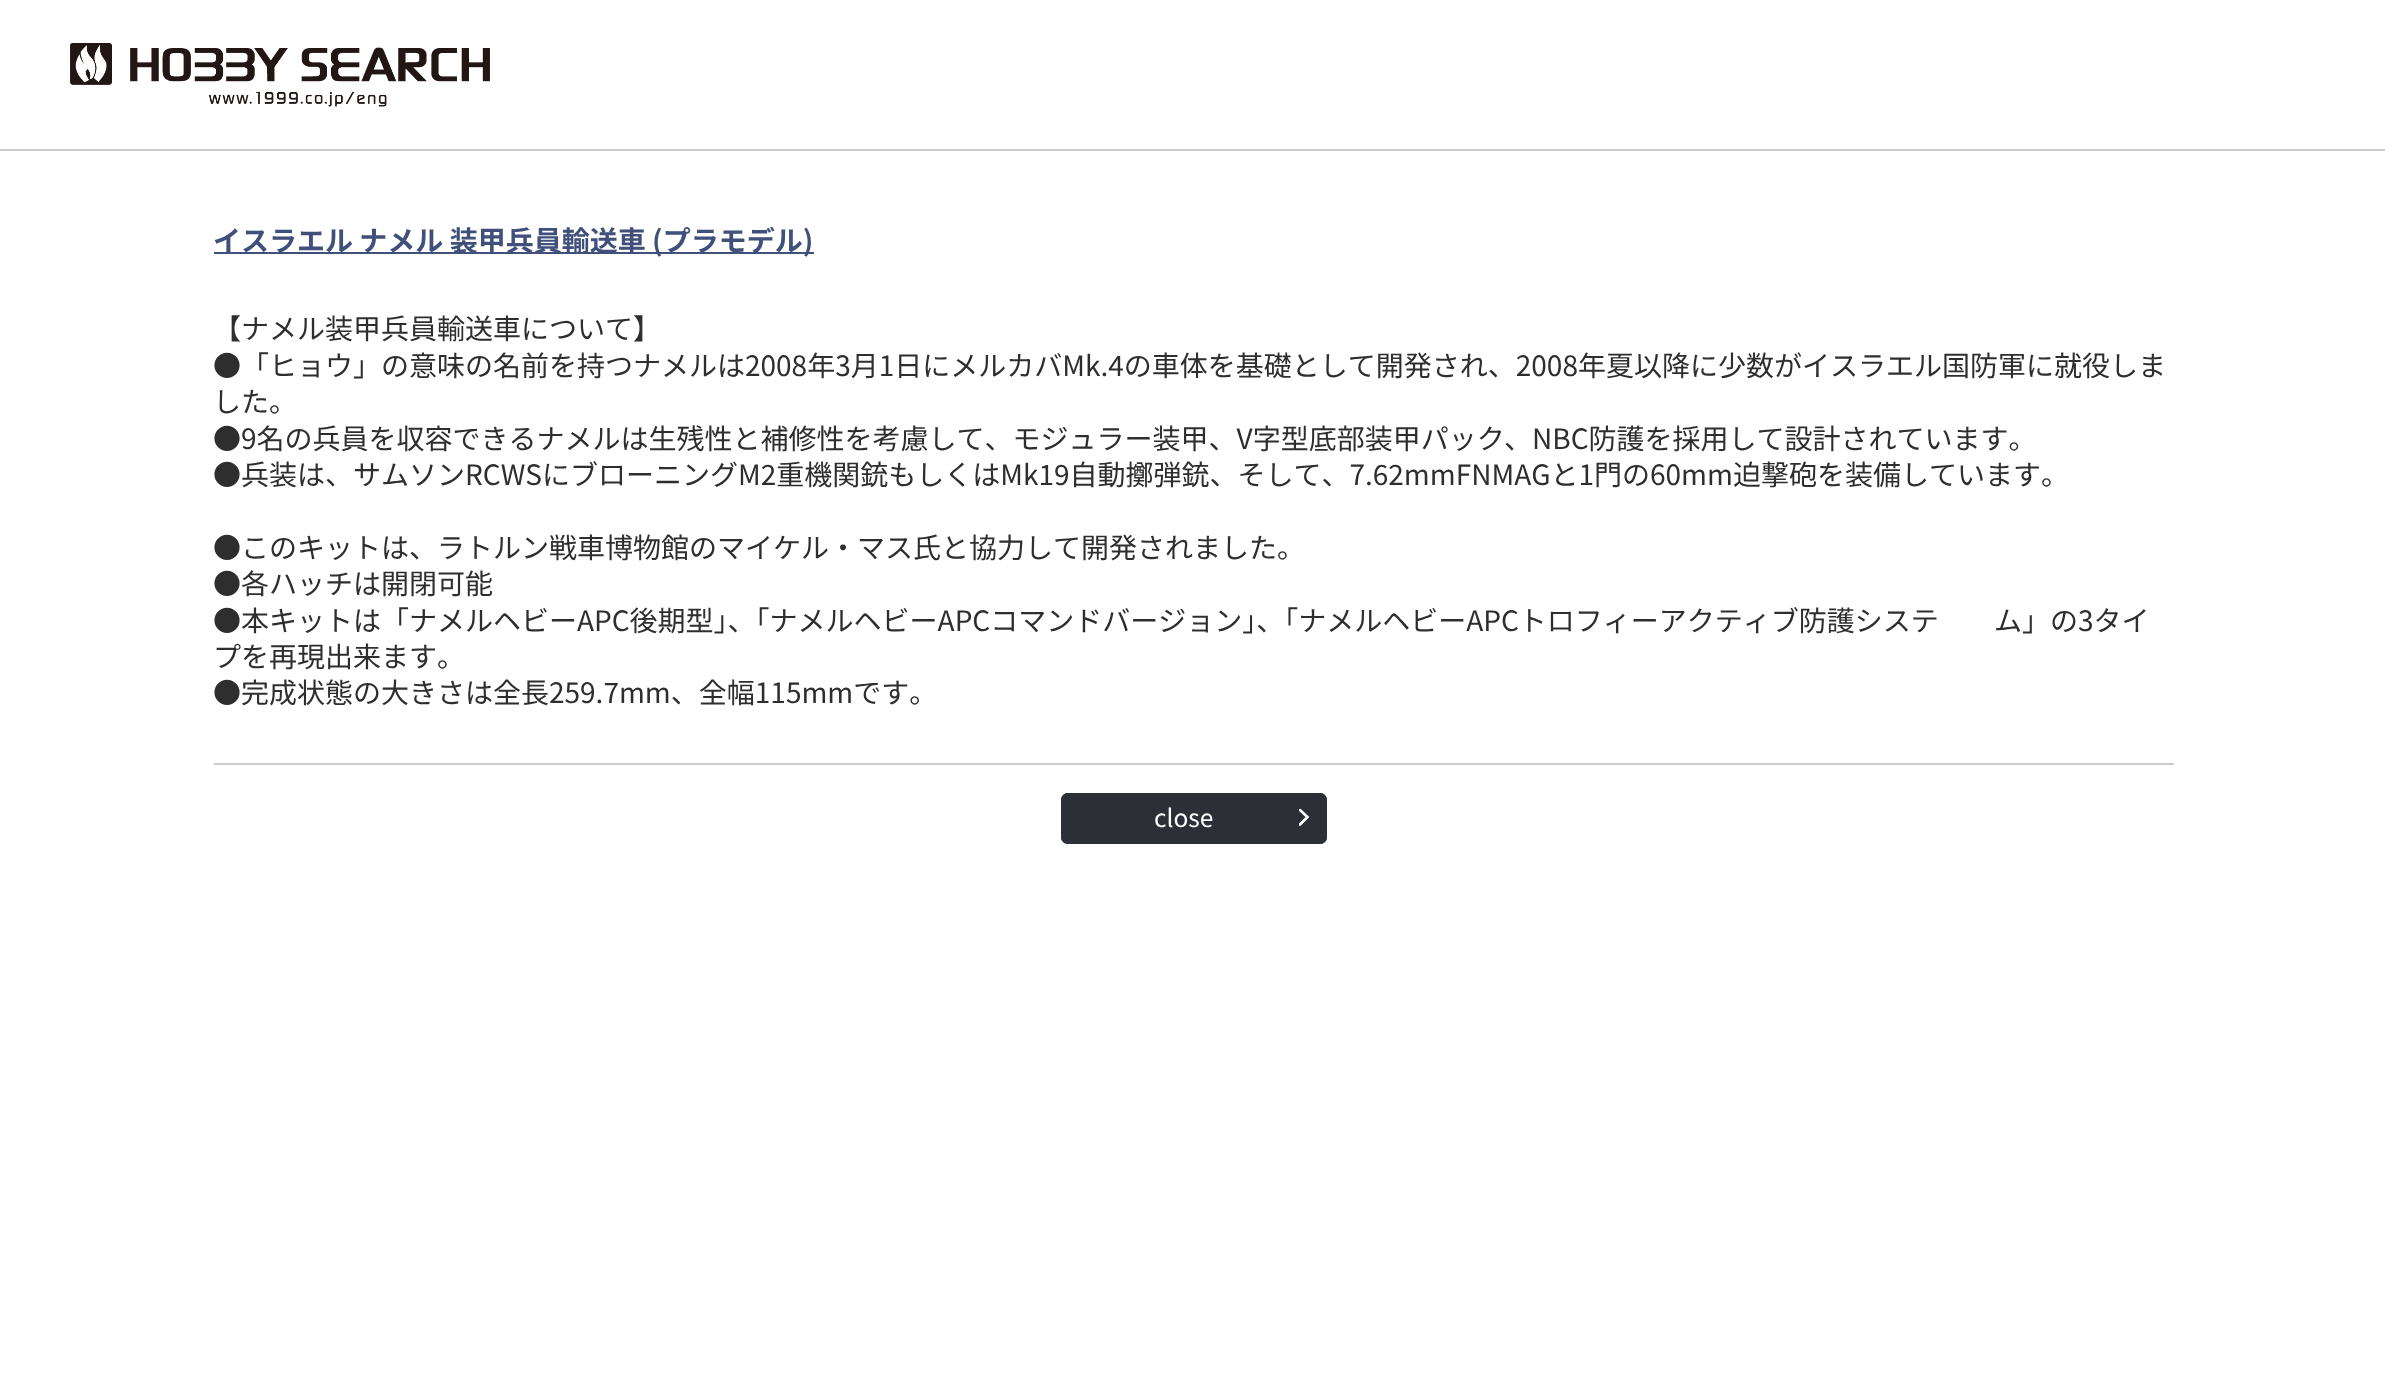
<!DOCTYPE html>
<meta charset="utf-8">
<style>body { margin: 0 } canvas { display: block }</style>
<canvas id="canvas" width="2385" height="1373"></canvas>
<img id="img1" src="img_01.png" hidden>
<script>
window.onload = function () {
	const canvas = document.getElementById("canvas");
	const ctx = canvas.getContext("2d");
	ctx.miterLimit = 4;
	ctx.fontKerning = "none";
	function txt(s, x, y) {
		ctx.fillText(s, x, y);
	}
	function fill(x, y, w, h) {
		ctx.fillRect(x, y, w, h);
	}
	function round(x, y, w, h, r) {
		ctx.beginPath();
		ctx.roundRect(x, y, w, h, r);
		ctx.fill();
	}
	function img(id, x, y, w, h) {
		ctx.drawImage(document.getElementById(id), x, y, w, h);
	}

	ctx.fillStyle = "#FFFFFF";
	fill(0, 0, 2385, 1373);
	ctx.fillStyle = "#CCCCCC";
	fill(0, 149, 2385, 2);
	img("img1", 70, 43, 420, 64);
	ctx.fillStyle = "#40507B";
	fill(214, 252, 600, 2);
	ctx.fillStyle = "#CCCCCC";
	fill(214, 763, 1960, 2);
	ctx.fillStyle = "#2D2F36";
	round(1061, 793, 266, 51, 7);
	ctx.save();
	ctx.beginPath();
	ctx.rect(1299, 809, 12, 17);
	ctx.clip();
	ctx.beginPath();
	ctx.moveTo(1300, 824.5);
	ctx.lineTo(1307.5, 817);
	ctx.lineTo(1300, 810);
	ctx.strokeStyle = "#FFFFFF";
	ctx.lineWidth = 2.6;
	ctx.lineCap = "round";
	ctx.stroke();
	ctx.restore();
	ctx.beginPath();
	ctx.roundRect(1062, 794, 264, 49, 6);
	ctx.strokeStyle = "#2D2F36";
	ctx.lineWidth = 2;
	ctx.stroke();
	ctx.font = "bold 28px Noto Sans JP";
	ctx.fillStyle = "#40507B";
	txt("イスラエル ナメル 装甲兵員輸送車 (プラモデル)", 213, 251);
	ctx.font = "28px Noto Sans JP";
	ctx.fillStyle = "#2E2E2E";
	txt("【ナメル装甲兵員輸送車について】", 213, 339);
	txt("●「ヒョウ」の意味の名前を持つナメルは2008年3月1日にメルカバMk.4の車体を基礎として開発され、2008年夏以降に少数がイスラエル国防軍に就役しま", 213, 376);
	txt("した。", 213, 412);
	txt("●9名の兵員を収容できるナメルは生残性と補修性を考慮して、モジュラー装甲、V字型底部装甲パック", 213, 449);
	txt("、NBC防護を採用して設計されています。", 1504, 449);
	txt("●兵装は、サムソンRCWSにブローニングM2重機関銃もしくはMk19自動擲弾銃、そして、7.62mmFNMAGと1門の60mm迫撃砲を装備しています", 213, 485);
	txt("。", 2041, 485);
	txt("●このキットは、ラトルン戦車博物館のマイケル・マス氏と協力して開発されました。", 213, 558);
	txt("●各ハッチは開閉可能", 213, 594);
	txt("●本キットは「ナメルヘビーAPC後期型」、「ナメルヘビーAPCコマンドバージョン」、「ナメルヘビーAPCトロフィーアクティブ防護システ", 213, 631);
	txt("ム」の3タイ", 1994, 631);
	txt("プを再現出来ます。", 213, 667);
	txt("●完成状態の大きさは全長259.7mm、全幅115mmです。", 213, 703);
	ctx.font = "24.5px Noto Sans JP";
	ctx.fillStyle = "#FFFFFF";
	txt("close", 1154, 827);
};
</script>
